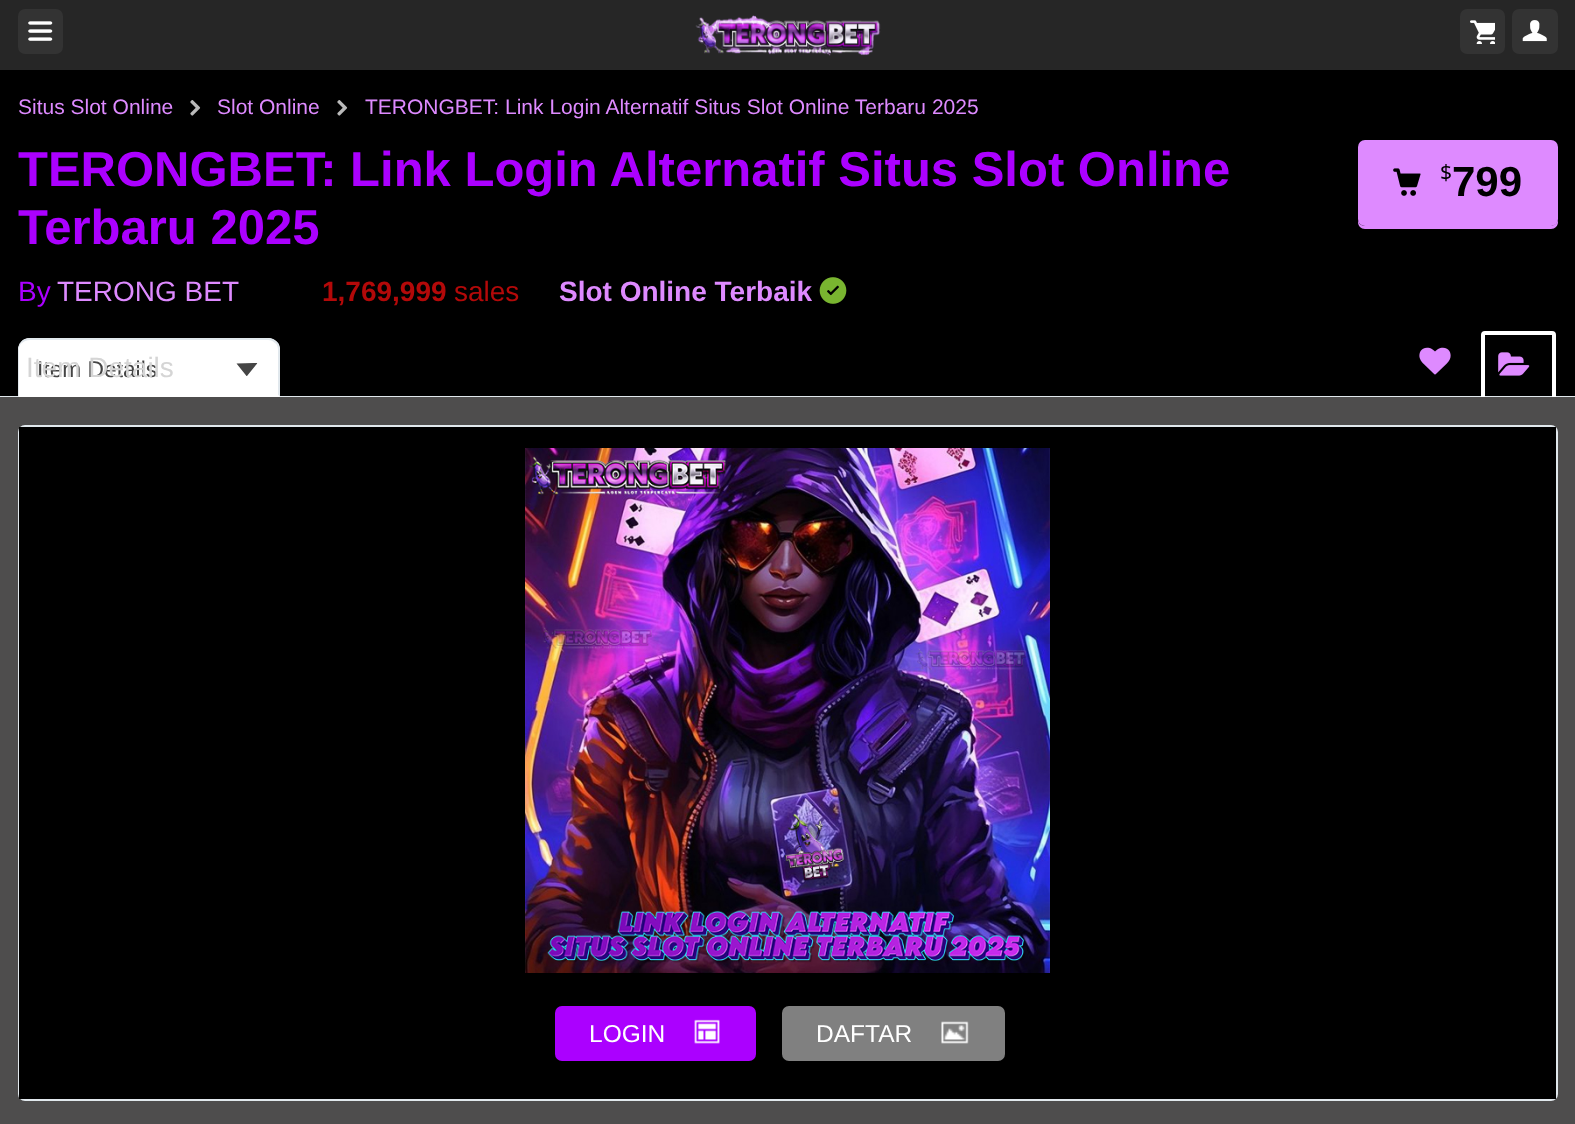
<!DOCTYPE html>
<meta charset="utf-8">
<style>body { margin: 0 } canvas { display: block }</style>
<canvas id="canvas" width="1575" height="1124"></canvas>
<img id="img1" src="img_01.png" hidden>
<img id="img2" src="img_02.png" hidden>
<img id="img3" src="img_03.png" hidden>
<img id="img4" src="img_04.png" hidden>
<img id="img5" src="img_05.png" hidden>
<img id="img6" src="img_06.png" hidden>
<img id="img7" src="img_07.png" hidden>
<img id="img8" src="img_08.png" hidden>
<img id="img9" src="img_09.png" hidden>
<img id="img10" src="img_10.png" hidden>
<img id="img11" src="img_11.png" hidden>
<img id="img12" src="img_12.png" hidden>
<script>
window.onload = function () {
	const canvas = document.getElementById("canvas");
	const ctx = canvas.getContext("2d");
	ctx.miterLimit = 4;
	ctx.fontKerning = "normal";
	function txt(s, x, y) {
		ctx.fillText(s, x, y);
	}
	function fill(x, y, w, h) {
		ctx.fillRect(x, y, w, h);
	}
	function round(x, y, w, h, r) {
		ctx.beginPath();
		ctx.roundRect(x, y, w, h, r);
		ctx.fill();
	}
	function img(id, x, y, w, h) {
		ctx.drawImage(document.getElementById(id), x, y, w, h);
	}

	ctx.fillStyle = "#000000";
	fill(0, 0, 1575, 1124);
	ctx.fillStyle = "#262626";
	fill(0, 0, 1575, 70);
	ctx.fillStyle = "#333333";
	round(18, 9, 45, 45, 7);
	img("img1", 28, 21, 25, 20);
	img("img2", 695, 15, 186, 41);
	round(1460, 9, 45, 45, 7);
	img("img3", 1470, 20, 25, 24);
	round(1512, 9, 46, 45, 7);
	img("img4", 1522, 20, 25, 22);
	ctx.fillStyle = "#E1E8ED";
	fill(0, 396, 1575, 1);
	img("img5", 190, 100, 11, 16);
	img("img5", 337, 100, 11, 16);
	ctx.fillStyle = "#DE8AFF";
	ctx.beginPath();
	ctx.moveTo(1358, 219);
	ctx.lineTo(1358, 222);
	ctx.bezierCurveTo(1358, 226, 1361, 229, 1365, 229);
	ctx.lineTo(1551, 229);
	ctx.bezierCurveTo(1555, 229, 1558, 226, 1558, 222);
	ctx.lineTo(1558, 151);
	ctx.lineTo(1558, 148);
	ctx.lineTo(1558, 219);
	ctx.bezierCurveTo(1558, 223, 1554, 226, 1550, 226);
	ctx.lineTo(1365, 226);
	ctx.bezierCurveTo(1361, 226, 1358, 223, 1358, 219);
	ctx.closePath();
	ctx.fill();
	round(1358, 140, 200, 86, 7);
	img("img6", 1393, 168, 28, 28);
	img("img7", 819, 277, 28, 27);
	ctx.fillStyle = "#FFFFFF";
	ctx.beginPath();
	ctx.roundRect(18, 338, 262, 59, [12, 12, 0, 0]);
	ctx.fill();
	ctx.fillStyle = "#454545";
	ctx.beginPath();
	ctx.moveTo(247, 376);
	ctx.lineTo(246.5, 376);
	ctx.lineTo(236.5, 363.5);
	ctx.lineTo(253.5, 363);
	ctx.bezierCurveTo(258, 363, 258, 362.5, 255.5, 365.5);
	ctx.closePath();
	ctx.fill();
	ctx.beginPath();
	ctx.moveTo(257, 364.5);
	ctx.lineTo(264, 371.5);
	ctx.lineTo(271, 364.5);
	ctx.strokeStyle = "#FFFFFF";
	ctx.lineWidth = 3.5;
	ctx.stroke();
	ctx.fillStyle = "#E1E8ED";
	ctx.beginPath();
	ctx.moveTo(30, 338);
	ctx.bezierCurveTo(26, 338, 23, 339, 21, 342);
	ctx.lineTo(22, 343);
	ctx.bezierCurveTo(24, 341, 27, 340, 30, 340);
	ctx.lineTo(268, 340);
	ctx.bezierCurveTo(271, 340, 273, 341, 275, 343);
	ctx.lineTo(276, 341);
	ctx.bezierCurveTo(274, 339, 271, 338, 268, 338);
	ctx.closePath();
	ctx.fill();
	ctx.beginPath();
	ctx.moveTo(276, 341);
	ctx.bezierCurveTo(279, 343, 280, 346, 280, 350);
	ctx.lineTo(280, 397);
	ctx.lineTo(278, 395);
	ctx.lineTo(278, 350);
	ctx.bezierCurveTo(278, 347, 277, 344, 275, 343);
	ctx.closePath();
	ctx.fill();
	ctx.fillStyle = "#FFFFFF";
	ctx.beginPath();
	ctx.moveTo(280, 397);
	ctx.lineTo(18, 397);
	ctx.lineTo(19, 396);
	ctx.lineTo(278, 396);
	ctx.lineTo(278, 395);
	ctx.closePath();
	ctx.fill();
	ctx.fillStyle = "#E1E8ED";
	ctx.beginPath();
	ctx.moveTo(21, 342);
	ctx.bezierCurveTo(19, 344, 18, 347, 18, 350);
	ctx.lineTo(18, 397);
	ctx.lineTo(19, 396);
	ctx.lineTo(19, 350);
	ctx.bezierCurveTo(19, 347, 20, 344, 22, 343);
	ctx.closePath();
	ctx.fill();
	img("img8", 1419, 347, 32, 28);
	ctx.beginPath();
	ctx.roundRect(1483, 333, 71, 66, [2, 2, 0, 0]);
	ctx.lineWidth = 4;
	ctx.stroke();
	img("img9", 1498, 352, 32, 24);
	ctx.fillStyle = "#4E4D4D";
	fill(0, 397, 1575, 727);
	ctx.beginPath();
	ctx.roundRect(19, 426, 1538, 674, 6);
	ctx.strokeStyle = "#E1E8ED";
	ctx.lineWidth = 2;
	ctx.stroke();
	ctx.fillStyle = "#000000";
	fill(19, 427, 1537, 672);
	img("img10", 525, 448, 525, 525);
	ctx.fillStyle = "#AB00FF";
	round(555, 1006, 201, 55, 7);
	img("img11", 694, 1019, 26, 25);
	ctx.fillStyle = "#808080";
	round(782, 1006, 223, 55, 7);
	img("img12", 941, 1021, 28, 23);
	ctx.font = "21px Liberation Sans";
	ctx.fillStyle = "#DE8AFF";
	txt("Situs Slot Online", 18, 114);
	txt("Slot Online", 217, 114);
	txt("TERONGBET: Link Login Alternatif Situs Slot Online Terbaru 2025", 365, 114);
	ctx.font = "bold 49px Liberation Sans";
	ctx.fillStyle = "#AB00FF";
	txt("TERONGBET: Link Login Alternatif Situs Slot Online", 18, 186);
	txt("Terbaru 2025", 18, 244);
	ctx.font = "21px Noto Sans";
	ctx.fillStyle = "#000000";
	txt("$", 1440, 180);
	ctx.font = "bold 42px Liberation Sans";
	txt("799", 1452, 196);
	ctx.font = "28px Liberation Sans";
	ctx.fillStyle = "#AB00FF";
	txt("By", 18, 301);
	ctx.fillStyle = "#DE8AFF";
	txt("TERONG BET", 57, 301);
	ctx.font = "bold 28px Liberation Sans";
	ctx.fillStyle = "#B30909";
	txt("1,769,999", 322, 301);
	ctx.font = "28px Liberation Sans";
	txt("sales", 454, 301);
	ctx.font = "bold 28px Liberation Sans";
	ctx.fillStyle = "#DE8AFF";
	txt("Slot Online Terbaik", 559, 301);
	ctx.font = "22.75px Liberation Sans";
	ctx.fillStyle = "#454545";
	txt("Item Details", 37, 377);
	ctx.font = "28px Liberation Sans";
	ctx.fillStyle = "#D5D5D5";
	txt("Item Details", 26, 377);
	ctx.font = "24.5px Liberation Sans";
	ctx.fillStyle = "#FFFFFF";
	txt("LOGIN", 589, 1042);
	txt("DAFTAR", 816, 1042);
};
</script>
